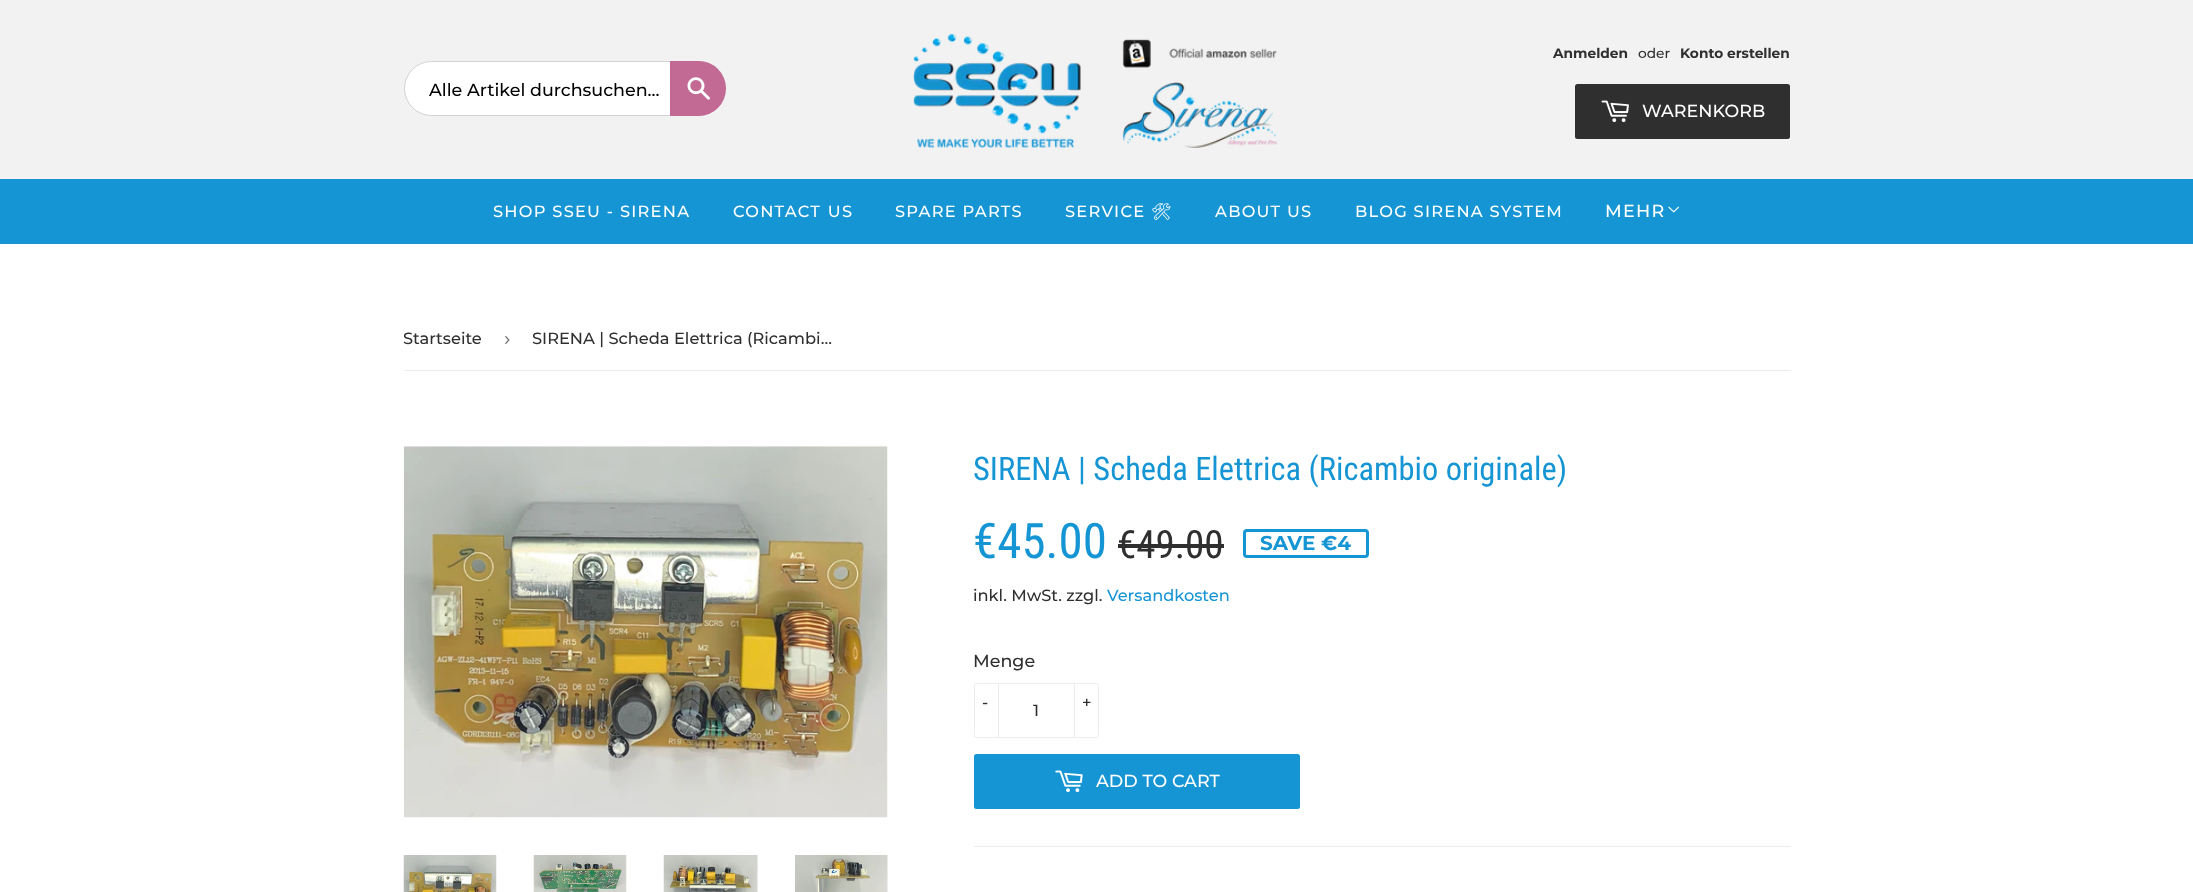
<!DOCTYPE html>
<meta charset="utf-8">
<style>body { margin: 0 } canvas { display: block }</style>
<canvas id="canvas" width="2193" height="892"></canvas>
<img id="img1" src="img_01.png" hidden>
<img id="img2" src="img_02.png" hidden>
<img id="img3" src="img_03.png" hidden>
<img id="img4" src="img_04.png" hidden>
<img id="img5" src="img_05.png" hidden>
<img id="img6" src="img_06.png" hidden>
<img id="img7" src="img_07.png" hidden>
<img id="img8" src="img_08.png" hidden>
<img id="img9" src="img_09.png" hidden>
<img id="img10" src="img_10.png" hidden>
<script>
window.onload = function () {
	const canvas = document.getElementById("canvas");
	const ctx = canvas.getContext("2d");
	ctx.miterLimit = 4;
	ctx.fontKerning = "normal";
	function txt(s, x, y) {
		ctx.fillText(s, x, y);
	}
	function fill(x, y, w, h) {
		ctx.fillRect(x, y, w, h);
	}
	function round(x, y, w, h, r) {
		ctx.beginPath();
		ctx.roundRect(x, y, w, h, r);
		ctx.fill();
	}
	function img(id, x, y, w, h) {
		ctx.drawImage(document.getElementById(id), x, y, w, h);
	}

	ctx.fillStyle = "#FFFFFF";
	fill(0, 0, 2193, 892);
	ctx.fillStyle = "#F2F2F2";
	fill(0, 0, 2193, 179);
	ctx.fillStyle = "#FFFFFF";
	ctx.beginPath();
	ctx.roundRect(404.5, 61.5, 321, 54, 27);
	ctx.fill();
	ctx.strokeStyle = "#D2D2D2";
	ctx.stroke();
	ctx.fillStyle = "#C36A94";
	ctx.beginPath();
	ctx.roundRect(670, 61, 56, 55, [0, 27.5, 27.5, 0]);
	ctx.fill();
	img("img1", 687, 77, 23, 23);
	img("img2", 913, 33, 365, 115);
	ctx.fillStyle = "#2F2F2F";
	round(1575, 84, 215, 55, 2.5);
	img("img3", 1601, 100, 28, 23);
	ctx.fillStyle = "#1595D4";
	fill(0, 179, 2193, 65);
	img("img4", 1668, 206, 11, 7);
	ctx.fillStyle = "#ECECEC";
	fill(404, 370, 1387, 1);
	img("img5", 403, 446, 485, 372);
	img("img6", 403, 855, 94, 37);
	img("img7", 533, 855, 94, 37);
	img("img8", 663, 855, 95, 37);
	img("img9", 795, 855, 93, 37);
	ctx.fillStyle = "#2F2F2F";
	fill(1118, 544, 106, 4);
	ctx.beginPath();
	ctx.roundRect(1244.5, 530.5, 123, 26, 2.5);
	ctx.strokeStyle = "#1595D4";
	ctx.lineWidth = 3;
	ctx.stroke();
	ctx.beginPath();
	ctx.roundRect(974.5, 683.5, 124, 54, 2);
	ctx.strokeStyle = "#ECECEC";
	ctx.lineWidth = 1;
	ctx.stroke();
	ctx.fillStyle = "#ECECEC";
	fill(998, 683, 1, 55);
	fill(1074, 683, 1, 55);
	ctx.fillStyle = "#1595D4";
	round(974, 754, 326, 55, 2.5);
	img("img10", 1055, 770, 28, 23);
	ctx.fillStyle = "#ECECEC";
	fill(974, 846, 817, 1);
	ctx.font = "500 17.5px Montserrat";
	ctx.fillStyle = "#000000";
	txt("Alle Artikel durchsuchen...", 429, 96);
	ctx.font = "bold 13.75px Montserrat";
	ctx.fillStyle = "#2F2F2F";
	txt("Anmelden", 1553, 58);
	ctx.font = "500 13.75px Montserrat";
	txt("oder", 1638, 58);
	ctx.font = "bold 13.75px Montserrat";
	txt("Konto erstellen", 1680, 58);
	ctx.font = "500 17.5px Montserrat";
	ctx.fillStyle = "#FFFFFF";
	txt("WARENKORB", 1642, 117);
	ctx.letterSpacing = "1.25px";
	ctx.font = "500 16.25px Montserrat";
	txt("SHOP SSEU - SIRENA", 493, 217);
	ctx.wordSpacing = "1px";
	txt("CONTACT US", 733, 217);
	ctx.wordSpacing = "0px";
	txt("SPARE PARTS", 895, 217);
	txt("SERVICE", 1065, 217);
	ctx.font = "500 16.25px Noto Emoji";
	txt("🛠", 1151, 217);
	ctx.font = "500 16.25px Montserrat";
	txt("ABOUT US", 1215, 217);
	txt("BLOG SIRENA SYSTEM", 1355, 217);
	ctx.font = "500 17.5px Montserrat";
	txt("MEHR", 1605, 217);
	ctx.letterSpacing = "0px";
	ctx.font = "500 16.25px Montserrat";
	ctx.fillStyle = "#2F2F2F";
	txt("Startseite", 403, 344);
	ctx.font = "19px Liberation Sans";
	ctx.fillStyle = "#767676";
	txt("›", 504, 345);
	ctx.font = "500 16.25px Montserrat";
	ctx.fillStyle = "#2F2F2F";
	txt("SIRENA | Scheda Elettrica (Ricambi…", 532, 344);
	ctx.font = "32.5px Roboto Condensed";
	ctx.fillStyle = "#1595D4";
	txt("SIRENA | Scheda Elettrica (Ricambio originale)", 973, 480);
	ctx.font = "49px Roboto Condensed";
	txt("€45.00", 973, 558);
	ctx.font = "39px Roboto Condensed";
	ctx.fillStyle = "#2F2F2F";
	txt("€49.00", 1117, 558);
	ctx.font = "bold 20px Montserrat";
	ctx.fillStyle = "#1595D4";
	txt("SAVE €4", 1260, 550);
	ctx.font = "500 16.25px Montserrat";
	ctx.fillStyle = "#2F2F2F";
	txt("inkl. MwSt. zzgl.", 973, 601);
	ctx.fillStyle = "#1595D4";
	txt("Versandkosten", 1107, 601);
	ctx.font = "500 17.5px Montserrat";
	ctx.fillStyle = "#2F2F2F";
	txt("Menge", 973, 667);
	ctx.font = "500 16.25px Montserrat";
	txt("-", 982, 708);
	txt("+", 1082, 708);
	txt("1", 1033, 716);
	ctx.font = "500 17.5px Montserrat";
	ctx.fillStyle = "#FFFFFF";
	txt("ADD TO CART", 1096, 787);
};
</script>
